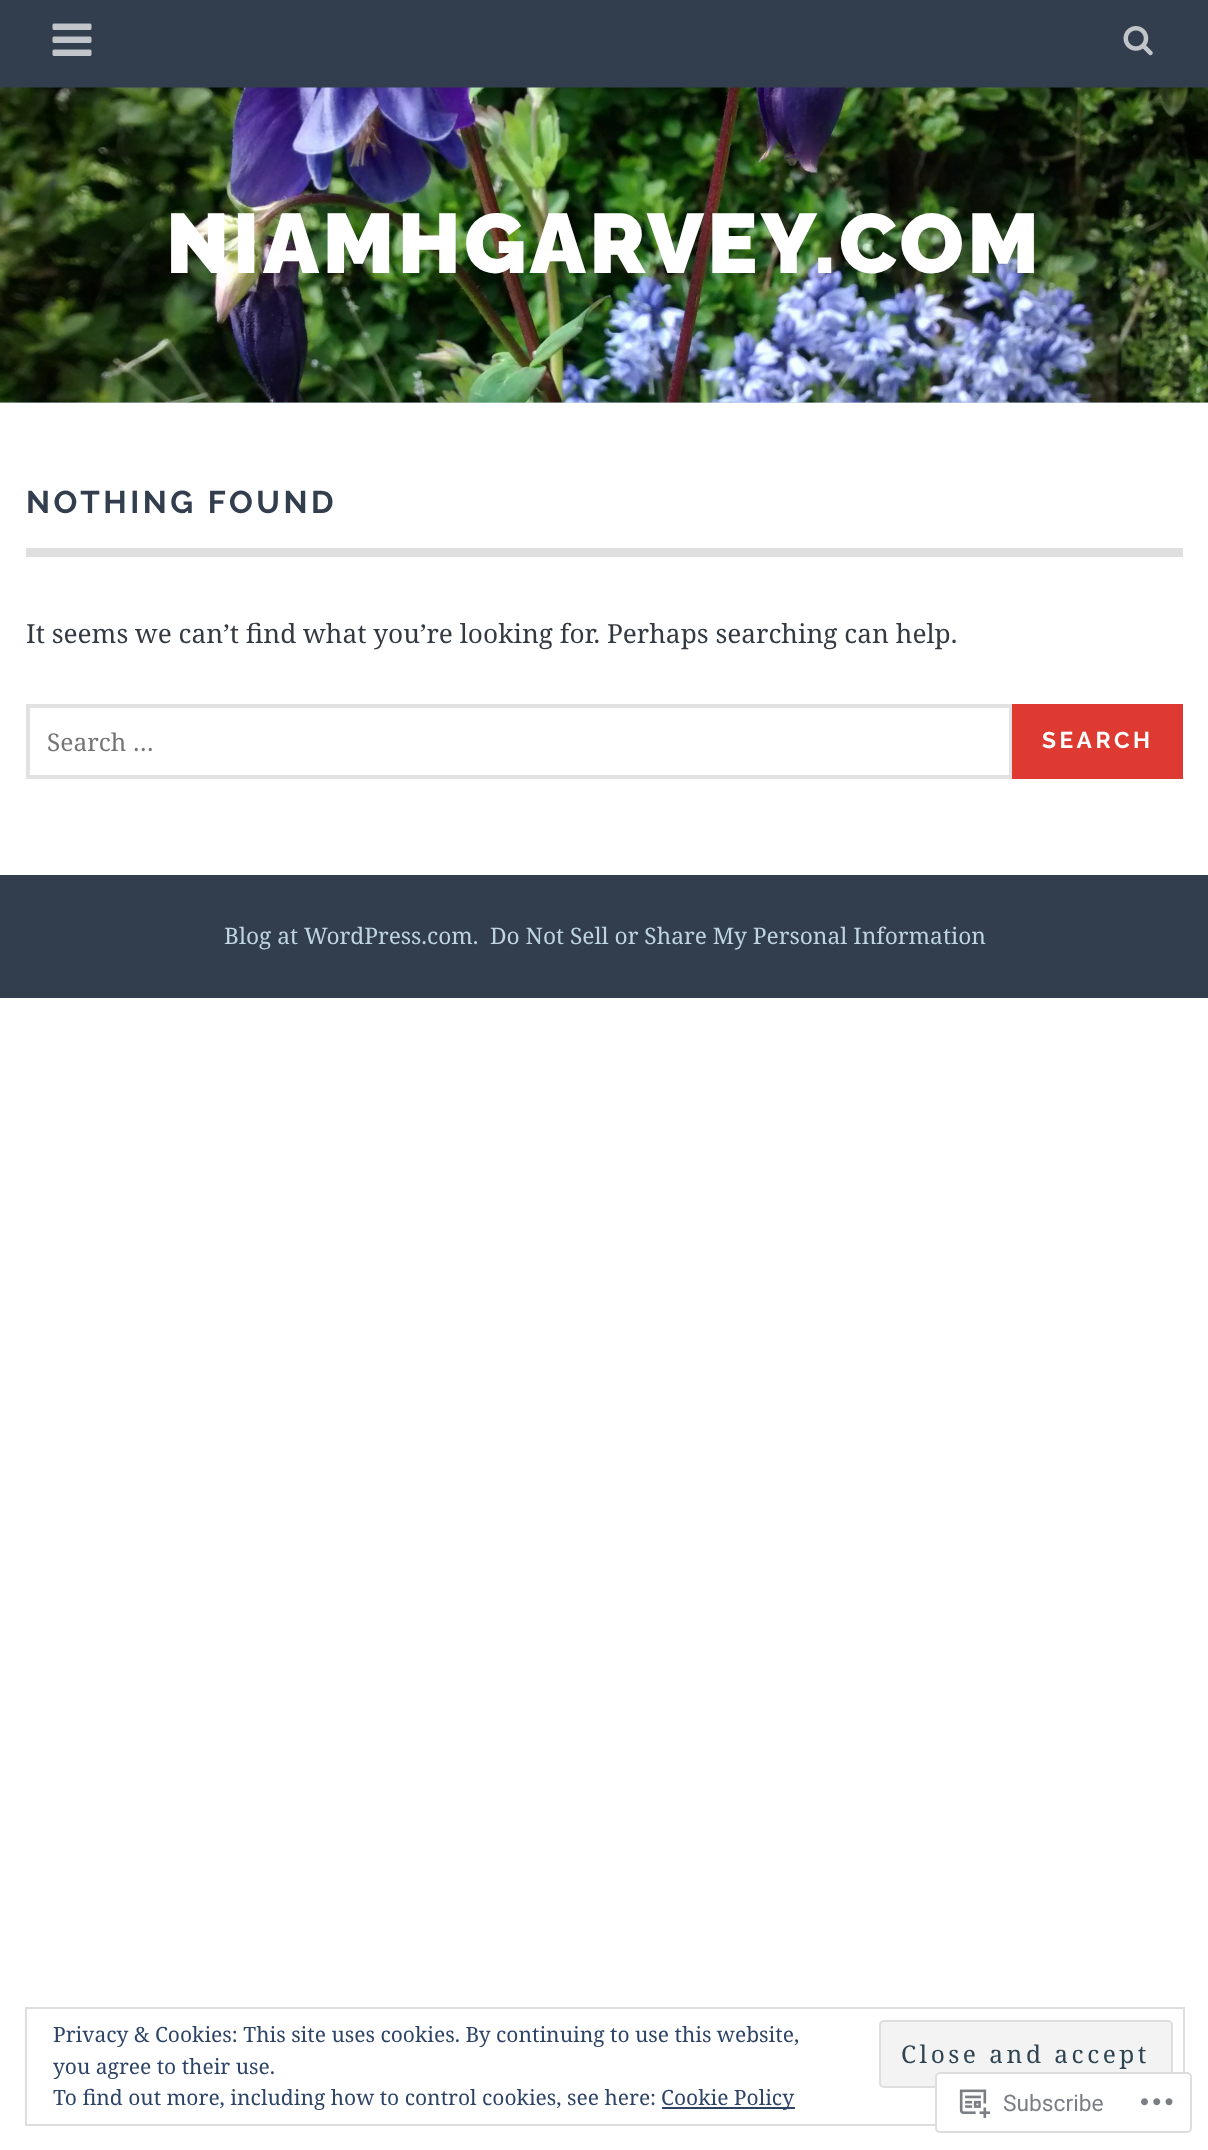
<!DOCTYPE html>
<meta charset="utf-8">
<style>body { margin: 0 } canvas { display: block }</style>
<canvas id="canvas" width="1208" height="2150"></canvas>
<img id="img1" src="img_01.png" hidden>
<img id="img2" src="img_02.png" hidden>
<img id="img3" src="img_03.png" hidden>
<img id="img4" src="img_04.png" hidden>
<img id="img5" src="img_05.png" hidden>
<script>
window.onload = function () {
	const canvas = document.getElementById("canvas");
	const ctx = canvas.getContext("2d");
	ctx.miterLimit = 4;
	ctx.fontKerning = "normal";
	function txt(s, x, y) {
		ctx.fillText(s, x, y);
	}
	function fill(x, y, w, h) {
		ctx.fillRect(x, y, w, h);
	}
	function round(x, y, w, h, r) {
		ctx.beginPath();
		ctx.roundRect(x, y, w, h, r);
		ctx.fill();
	}
	function img(id, x, y, w, h) {
		ctx.drawImage(document.getElementById(id), x, y, w, h);
	}

	ctx.fillStyle = "#FFFFFF";
	fill(0, 0, 1208, 2150);
	ctx.fillStyle = "#323E4E";
	fill(0, 0, 1208, 88);
	img("img1", 52, 23, 40, 33);
	img("img2", 1123, 26, 30, 30);
	ctx.fillStyle = "#BED4DF";
	fill(0, 402, 1208, 1);
	img("img3", 0, 87, 1208, 316);
	ctx.fillStyle = "#DFDFDF";
	fill(26, 548, 1157, 9);
	ctx.strokeStyle = "#E2E2E2";
	ctx.lineWidth = 4;
	ctx.strokeRect(28, 706, 983, 71);
	ctx.fillStyle = "#DE3A31";
	fill(1012, 704, 171, 75);
	ctx.fillStyle = "#323E4E";
	fill(0, 875, 1208, 123);
	ctx.strokeStyle = "#DEDEDE";
	ctx.lineWidth = 2;
	ctx.strokeRect(26, 2008, 1158, 117);
	ctx.fillStyle = "#F3F3F3";
	ctx.beginPath();
	ctx.roundRect(880, 2021, 292, 66, 4);
	ctx.fill();
	ctx.stroke();
	ctx.fillStyle = "#2E4467";
	fill(662, 2107, 133, 2);
	ctx.fillStyle = "rgba(255, 255, 255, 0.98)";
	round(935, 2072, 257, 61, 5);
	ctx.beginPath();
	ctx.roundRect(936, 2073, 255, 59, 4);
	ctx.strokeStyle = "rgba(220, 220, 222, 0.98)";
	ctx.stroke();
	img("img4", 959, 2089, 32, 29);
	img("img5", 1141, 2098, 32, 8);
	ctx.letterSpacing = "3.5px";
	ctx.font = "900 84px Raleway";
	ctx.fillStyle = "#FFFFFF";
	txt("NIAMHGARVEY.COM", 166, 273);
	ctx.font = "bold 31.5px Raleway";
	ctx.fillStyle = "#323E4E";
	txt("NOTHING FOUND", 26, 513);
	ctx.letterSpacing = "0px";
	ctx.font = "26.25px Noto Serif";
	ctx.fillStyle = "#333A42";
	txt("It seems we can’t find what you’re looking for. Perhaps searching can help.", 26, 643);
	ctx.font = "24.5px Noto Serif";
	ctx.fillStyle = "#757575";
	txt("Search …", 47, 751);
	ctx.letterSpacing = "3.5px";
	ctx.font = "bold 22.75px Raleway";
	ctx.fillStyle = "#FFFFFF";
	txt("SEARCH", 1042, 748);
	ctx.letterSpacing = "0px";
	ctx.font = "22.75px Noto Serif";
	ctx.fillStyle = "#BED4DF";
	txt("Blog at WordPress.com.", 224, 944);
	txt("Do Not Sell or Share My Personal Information", 490, 944);
	ctx.font = "21px Noto Serif";
	ctx.fillStyle = "#2E4467";
	txt("Privacy & Cookies: This site uses cookies. By continuing to use this website,", 53, 2042);
	txt("you agree to their use.", 53, 2074);
	ctx.letterSpacing = "3.5px";
	ctx.font = "24.5px Noto Serif";
	ctx.fillStyle = "#2E4453";
	txt("Close and accept", 901, 2063);
	ctx.letterSpacing = "0px";
	ctx.font = "21px Noto Serif";
	ctx.fillStyle = "#2E4467";
	txt("To find out more, including how to control cookies, see here:", 53, 2105);
	txt("Cookie Policy", 661, 2105);
	ctx.font = "22.75px Roboto";
	ctx.fillStyle = "#7B7F85";
	txt("Subscribe", 1003, 2111);
};
</script>
